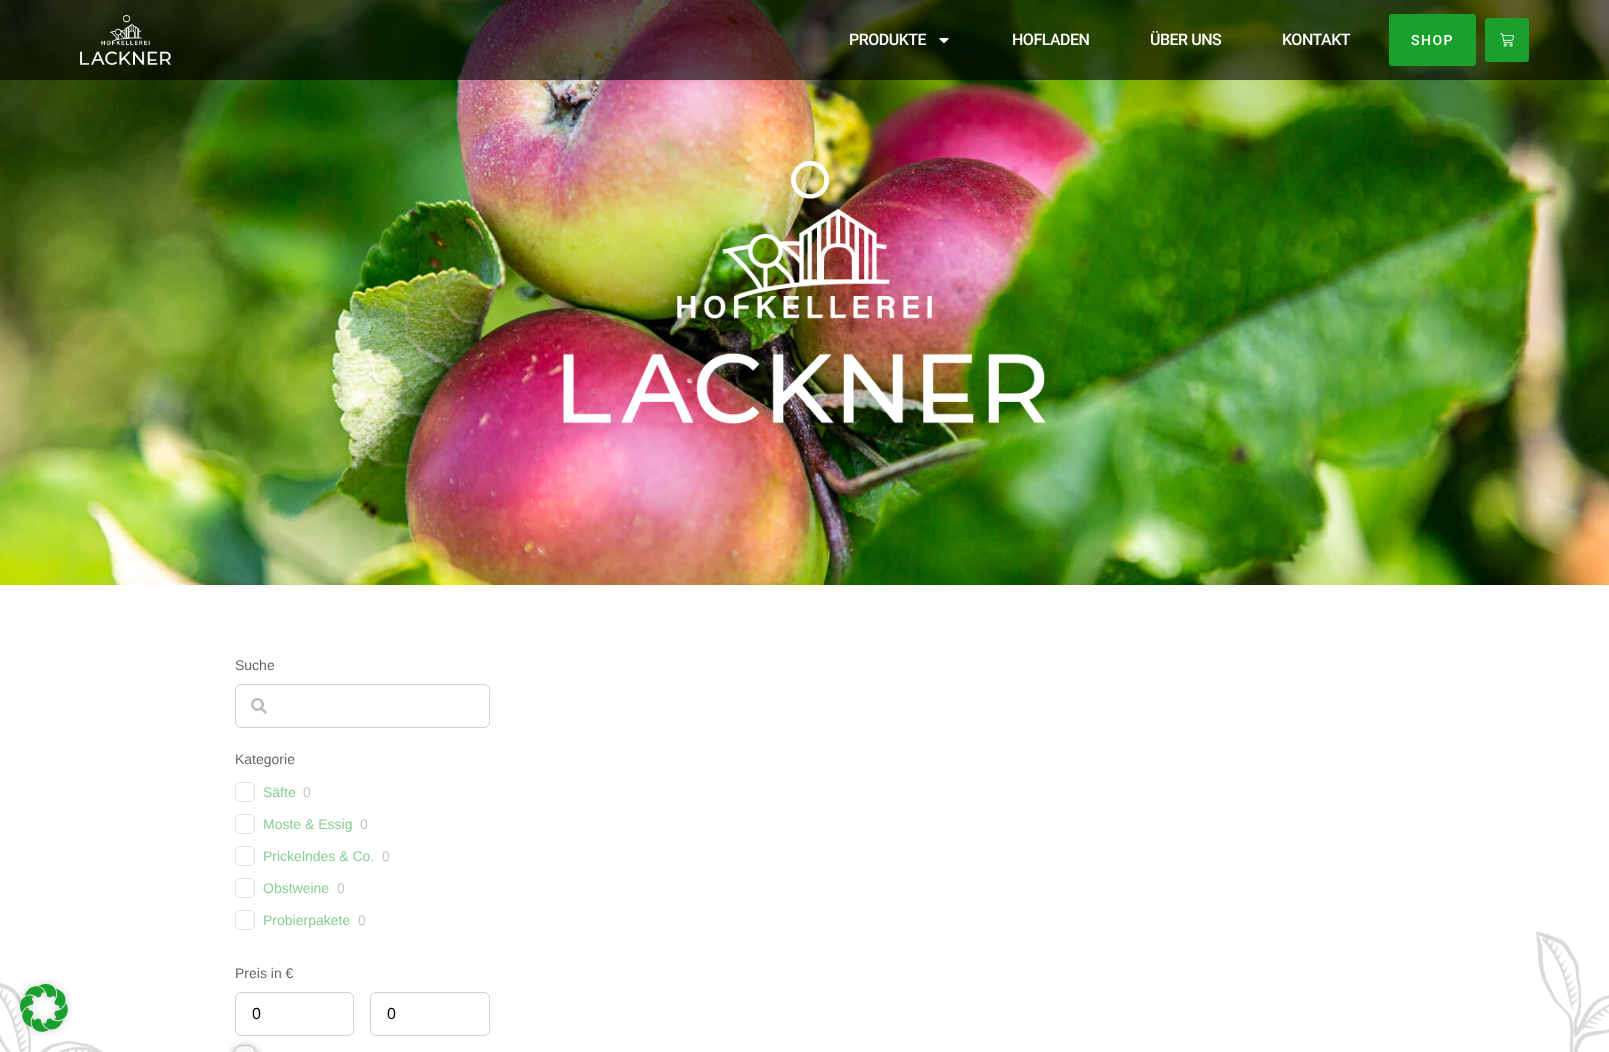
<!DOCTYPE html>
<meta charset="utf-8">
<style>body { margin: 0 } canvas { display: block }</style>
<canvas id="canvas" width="1609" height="1052"></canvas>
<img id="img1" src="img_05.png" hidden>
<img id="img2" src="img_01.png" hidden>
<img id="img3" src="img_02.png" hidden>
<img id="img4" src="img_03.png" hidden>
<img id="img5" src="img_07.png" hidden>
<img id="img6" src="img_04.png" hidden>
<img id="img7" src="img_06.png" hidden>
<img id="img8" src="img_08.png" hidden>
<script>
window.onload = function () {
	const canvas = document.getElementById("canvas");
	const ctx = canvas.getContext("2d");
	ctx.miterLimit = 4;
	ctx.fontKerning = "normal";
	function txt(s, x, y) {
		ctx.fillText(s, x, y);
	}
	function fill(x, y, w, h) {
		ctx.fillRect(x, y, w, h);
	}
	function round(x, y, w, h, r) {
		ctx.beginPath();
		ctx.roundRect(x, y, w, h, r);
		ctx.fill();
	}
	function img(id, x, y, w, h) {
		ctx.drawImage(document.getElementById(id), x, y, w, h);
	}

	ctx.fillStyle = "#FFFFFF";
	fill(0, 0, 1609, 1052);
	img("img1", 0, 0, 1609, 585);
	ctx.fillStyle = "rgba(0, 0, 0, 0.62)";
	fill(0, 0, 1609, 80);
	img("img2", 80, 15, 91, 50);
	img("img3", 939, 38, 10, 6);
	ctx.fillStyle = "#19A02D";
	ctx.beginPath();
	ctx.roundRect(1390, 15, 85, 50, 2);
	ctx.fill();
	ctx.strokeStyle = "#19A02D";
	ctx.lineWidth = 2;
	ctx.stroke();
	round(1485, 18, 44, 44, 3);
	img("img4", 1500, 33, 14, 14);
	img("img5", 0, 931, 1609, 121);
	img("img6", 15, 979, 57, 57);
	img("img7", 563, 161, 483, 263);
	ctx.beginPath();
	ctx.roundRect(235.5, 684.5, 254, 43, 5.5);
	ctx.strokeStyle = "#CCD0DC";
	ctx.lineWidth = 1;
	ctx.stroke();
	img("img8", 251, 698, 16, 16);
	ctx.beginPath();
	ctx.roundRect(235.5, 782.5, 19, 19, 4.5);
	ctx.strokeStyle = "#E0E0E0";
	ctx.stroke();
	ctx.beginPath();
	ctx.roundRect(235.5, 814.5, 19, 19, 4.5);
	ctx.stroke();
	ctx.beginPath();
	ctx.roundRect(235.5, 846.5, 19, 19, 4.5);
	ctx.stroke();
	ctx.beginPath();
	ctx.roundRect(235.5, 878.5, 19, 19, 4.5);
	ctx.stroke();
	ctx.beginPath();
	ctx.roundRect(235.5, 910.5, 19, 19, 4.5);
	ctx.stroke();
	ctx.beginPath();
	ctx.roundRect(235.5, 992.5, 118, 43, 5.5);
	ctx.strokeStyle = "#CCD0DC";
	ctx.stroke();
	ctx.beginPath();
	ctx.roundRect(370.5, 992.5, 119, 43, 5.5);
	ctx.stroke();
	ctx.fillStyle = "rgba(0, 0, 0, 0.23)";
	ctx.filter = "blur(4.5px)";
	ctx.beginPath();
	ctx.roundRect(233, 1047, 24, 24, 12);
	ctx.fill();
	ctx.filter = "none";
	ctx.beginPath();
	ctx.roundRect(233.5, 1045.5, 23, 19, 11.5);
	ctx.strokeStyle = "#C5C5C5";
	ctx.stroke();
	ctx.filter = "blur(4.5px)";
	ctx.beginPath();
	ctx.roundRect(233, 1047, 24, 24, 12);
	ctx.fill();
	ctx.filter = "none";
	ctx.fillStyle = "#F6F6F6";
	ctx.beginPath();
	ctx.roundRect(233.5, 1045.5, 23, 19, 11.5);
	ctx.fill();
	ctx.stroke();
	ctx.letterSpacing = "-0.5px";
	ctx.font = "500 16px Roboto";
	ctx.fillStyle = "#FFFFFF";
	txt("PRODUKTE", 849, 45);
	txt("HOFLADEN", 1012, 45);
	txt("ÜBER UNS", 1150, 45);
	txt("KONTAKT", 1282, 45);
	ctx.letterSpacing = "1.5px";
	ctx.font = "500 14px Roboto";
	txt("SHOP", 1411, 45);
	ctx.letterSpacing = "0px";
	ctx.font = "14px Liberation Sans";
	ctx.fillStyle = "#666666";
	txt("Suche", 235, 670);
	txt("Kategorie", 235, 764);
	ctx.fillStyle = "#89CE93";
	txt("Säfte", 263, 797);
	ctx.fillStyle = "#C4C4C4";
	txt("0", 303, 797);
	ctx.fillStyle = "#89CE93";
	txt("Moste & Essig", 263, 829);
	ctx.fillStyle = "#C4C4C4";
	txt("0", 360, 829);
	ctx.fillStyle = "#89CE93";
	txt("Prickelndes & Co.", 263, 861);
	ctx.fillStyle = "#C4C4C4";
	txt("0", 382, 861);
	ctx.fillStyle = "#89CE93";
	txt("Obstweine", 263, 893);
	ctx.fillStyle = "#C4C4C4";
	txt("0", 337, 893);
	ctx.fillStyle = "#89CE93";
	txt("Probierpakete", 263, 925);
	ctx.fillStyle = "#C4C4C4";
	txt("0", 358, 925);
	ctx.fillStyle = "#666666";
	txt("Preis in €", 235, 978);
	ctx.font = "16px Liberation Sans";
	ctx.fillStyle = "#000000";
	txt("0", 252, 1019);
	txt("0", 387, 1019);
};
</script>
